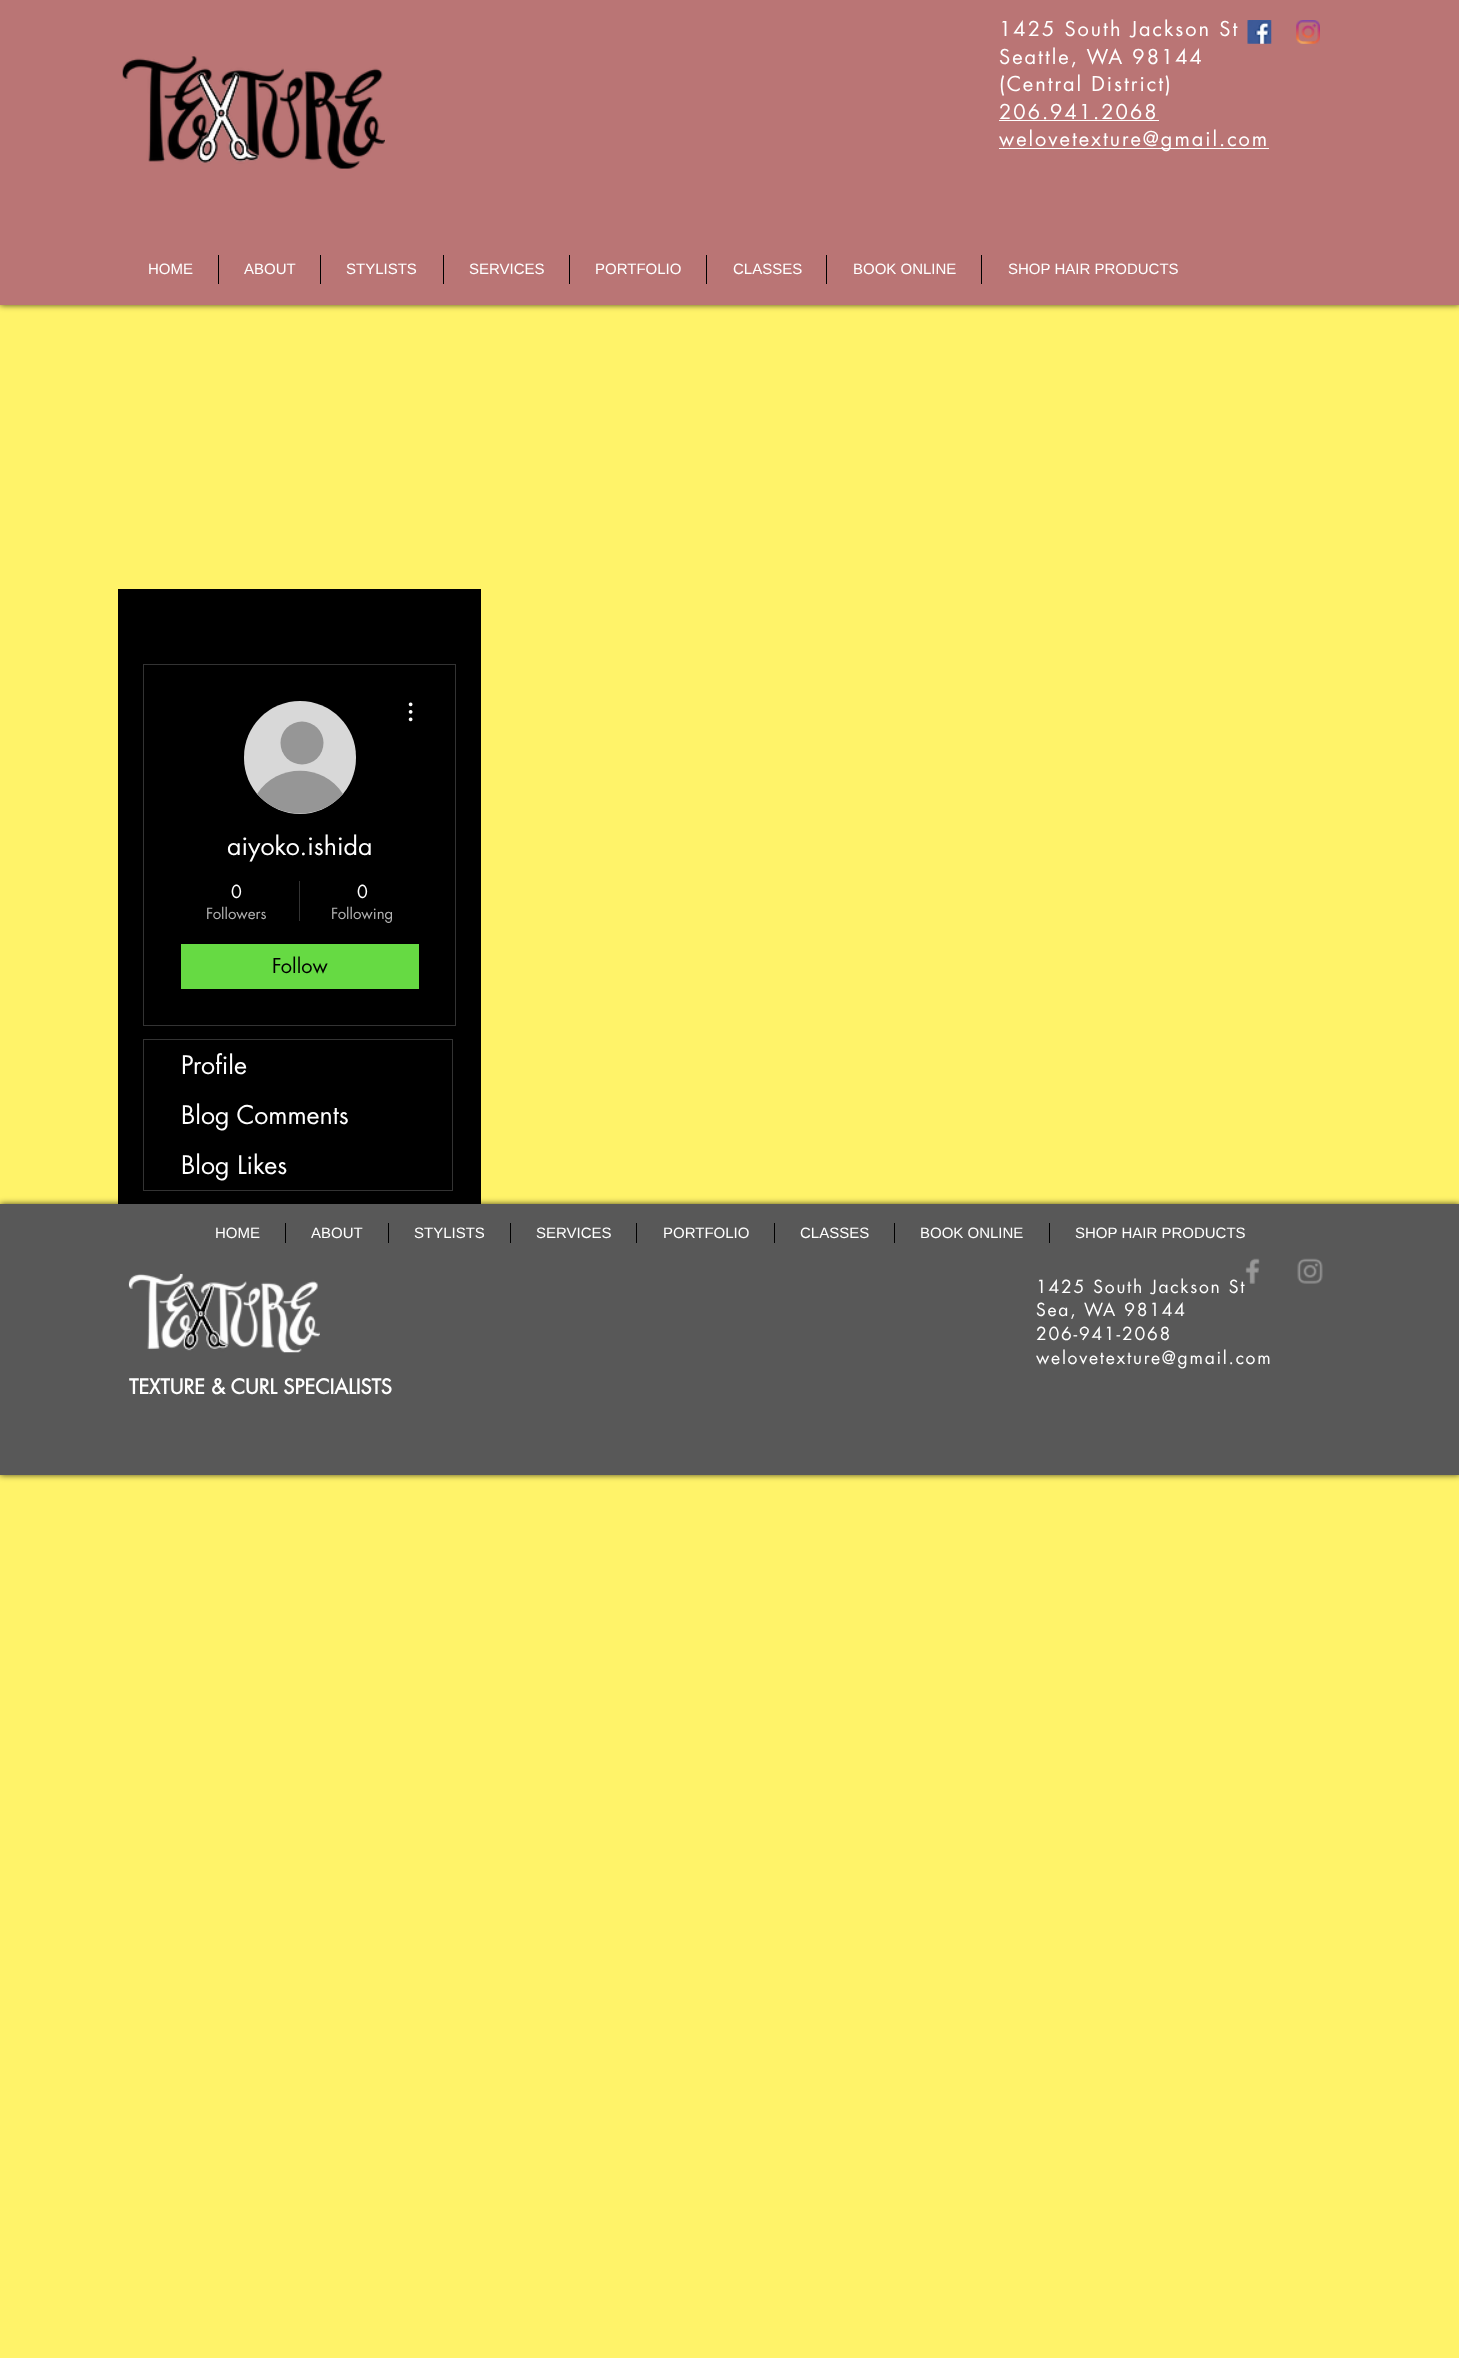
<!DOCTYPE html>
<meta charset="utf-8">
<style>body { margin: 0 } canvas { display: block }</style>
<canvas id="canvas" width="1459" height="2358"></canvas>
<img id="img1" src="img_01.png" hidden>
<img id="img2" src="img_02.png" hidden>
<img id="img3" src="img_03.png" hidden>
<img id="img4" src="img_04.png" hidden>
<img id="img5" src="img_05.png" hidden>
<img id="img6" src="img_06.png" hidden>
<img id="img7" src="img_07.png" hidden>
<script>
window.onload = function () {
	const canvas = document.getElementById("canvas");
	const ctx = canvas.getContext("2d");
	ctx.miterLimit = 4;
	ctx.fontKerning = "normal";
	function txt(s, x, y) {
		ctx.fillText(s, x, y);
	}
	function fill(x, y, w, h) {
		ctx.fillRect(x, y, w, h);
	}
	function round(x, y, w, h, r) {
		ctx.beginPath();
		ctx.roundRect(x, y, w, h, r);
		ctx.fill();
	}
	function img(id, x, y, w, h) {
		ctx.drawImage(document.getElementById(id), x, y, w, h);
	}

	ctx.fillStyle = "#FFF369";
	fill(0, 0, 1459, 2358);
	ctx.fillStyle = "rgba(0, 0, 0, 0.7)";
	ctx.filter = "blur(3px)";
	ctx.beginPath();
	ctx.rect(0, 0, 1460, 305);
	ctx.fill();
	ctx.filter = "none";
	ctx.fillStyle = "#BA7575";
	fill(0, 0, 1459, 305);
	ctx.fillStyle = "#FFFFFF";
	fill(999, 120, 160, 1);
	fill(999, 148, 270, 1);
	img("img1", 1247, 20, 25, 24);
	img("img2", 1296, 20, 24, 24);
	img("img3", 122, 56, 263, 113);
	ctx.fillStyle = "#000000";
	fill(218, 255, 1, 29);
	fill(320, 255, 1, 29);
	fill(443, 255, 1, 29);
	fill(569, 255, 1, 29);
	fill(706, 255, 1, 29);
	fill(826, 255, 1, 29);
	fill(981, 255, 1, 29);
	fill(118, 589, 363, 615);
	ctx.strokeStyle = "#333333";
	ctx.strokeRect(143.5, 664.5, 312, 361);
	ctx.fillStyle = "#D8D8D8";
	round(244, 701, 112, 113, 56);
	ctx.fillStyle = "#969696";
	ctx.beginPath();
	ctx.arc(302, 743, 21.5, 0, Math.PI * 2);
	ctx.fill();
	ctx.beginPath();
	ctx.moveTo(343, 794);
	ctx.bezierCurveTo(320, 820, 280, 820, 257, 794);
	ctx.bezierCurveTo(277, 763, 323, 763, 343, 794);
	ctx.closePath();
	ctx.fill();
	img("img4", 408, 702, 5, 20);
	ctx.fillStyle = "#333333";
	fill(299, 881, 1, 40);
	ctx.fillStyle = "#66DA43";
	fill(181, 944, 238, 45);
	ctx.strokeRect(143.5, 1039.5, 309, 151);
	ctx.fillStyle = "rgba(0, 0, 0, 0.7)";
	ctx.filter = "blur(3px)";
	ctx.beginPath();
	ctx.rect(0, 1204, 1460, 271);
	ctx.fill();
	ctx.filter = "none";
	ctx.fillStyle = "#585858";
	fill(0, 1204, 1459, 271);
	ctx.fillStyle = "#000000";
	fill(285, 1223, 1, 20);
	fill(388, 1223, 1, 20);
	fill(510, 1223, 1, 20);
	fill(636, 1223, 1, 20);
	fill(774, 1223, 1, 20);
	fill(894, 1223, 1, 20);
	fill(1049, 1223, 1, 20);
	img("img5", 128, 1273, 192, 80);
	img("img6", 1245, 1258, 15, 26);
	img("img7", 1297, 1258, 26, 26);
	ctx.letterSpacing = "2px";
	ctx.font = "20px futura";
	ctx.fillStyle = "#FFFFFF";
	txt("1425 South Jackson St", 999, 36);
	txt("Seattle, WA 98144", 999, 64);
	txt("(Central District)", 999, 91);
	txt("206.941.2068", 999, 119);
	txt("welovetexture@gmail.com", 999, 146);
	ctx.letterSpacing = "0px";
	ctx.font = "15px Liberation Sans";
	txt("HOME", 148, 274);
	txt("ABOUT", 244, 274);
	txt("STYLISTS", 346, 274);
	txt("SERVICES", 469, 274);
	txt("PORTFOLIO", 595, 274);
	txt("CLASSES", 733, 274);
	txt("BOOK ONLINE", 853, 274);
	txt("SHOP HAIR PRODUCTS", 1008, 274);
	ctx.font = "25px futura";
	txt("aiyoko.ishida", 227, 855);
	ctx.font = "17.5px futura";
	txt("0", 231, 898);
	ctx.font = "15px futura";
	ctx.fillStyle = "#B3B3B3";
	txt("Followers", 206, 919);
	ctx.font = "17.5px futura";
	ctx.fillStyle = "#FFFFFF";
	txt("0", 357, 898);
	ctx.font = "15px futura";
	ctx.fillStyle = "#B3B3B3";
	txt("Following", 331, 919);
	ctx.font = "20px futura";
	ctx.fillStyle = "#000000";
	txt("Follow", 272, 973);
	ctx.font = "25px futura";
	ctx.fillStyle = "#FFFFFF";
	txt("Profile", 181, 1074);
	txt("Blog Comments", 181, 1124);
	txt("Blog Likes", 181, 1174);
	ctx.font = "15px Liberation Sans";
	txt("HOME", 215, 1238);
	txt("ABOUT", 311, 1238);
	txt("STYLISTS", 414, 1238);
	txt("SERVICES", 536, 1238);
	txt("PORTFOLIO", 663, 1238);
	txt("CLASSES", 800, 1238);
	txt("BOOK ONLINE", 920, 1238);
	txt("SHOP HAIR PRODUCTS", 1075, 1238);
	ctx.letterSpacing = "1.75px";
	ctx.font = "17.5px futura";
	txt("1425 South Jackson St", 1036, 1293);
	txt("Sea, WA 98144", 1036, 1316);
	txt("206-941-2068", 1036, 1340);
	txt("welovetexture@gmail.com", 1036, 1364);
	ctx.letterSpacing = "0px";
	ctx.font = "bold 20px futura";
	txt("TEXTURE & CURL SPECIALISTS", 129, 1394);
};
</script>
